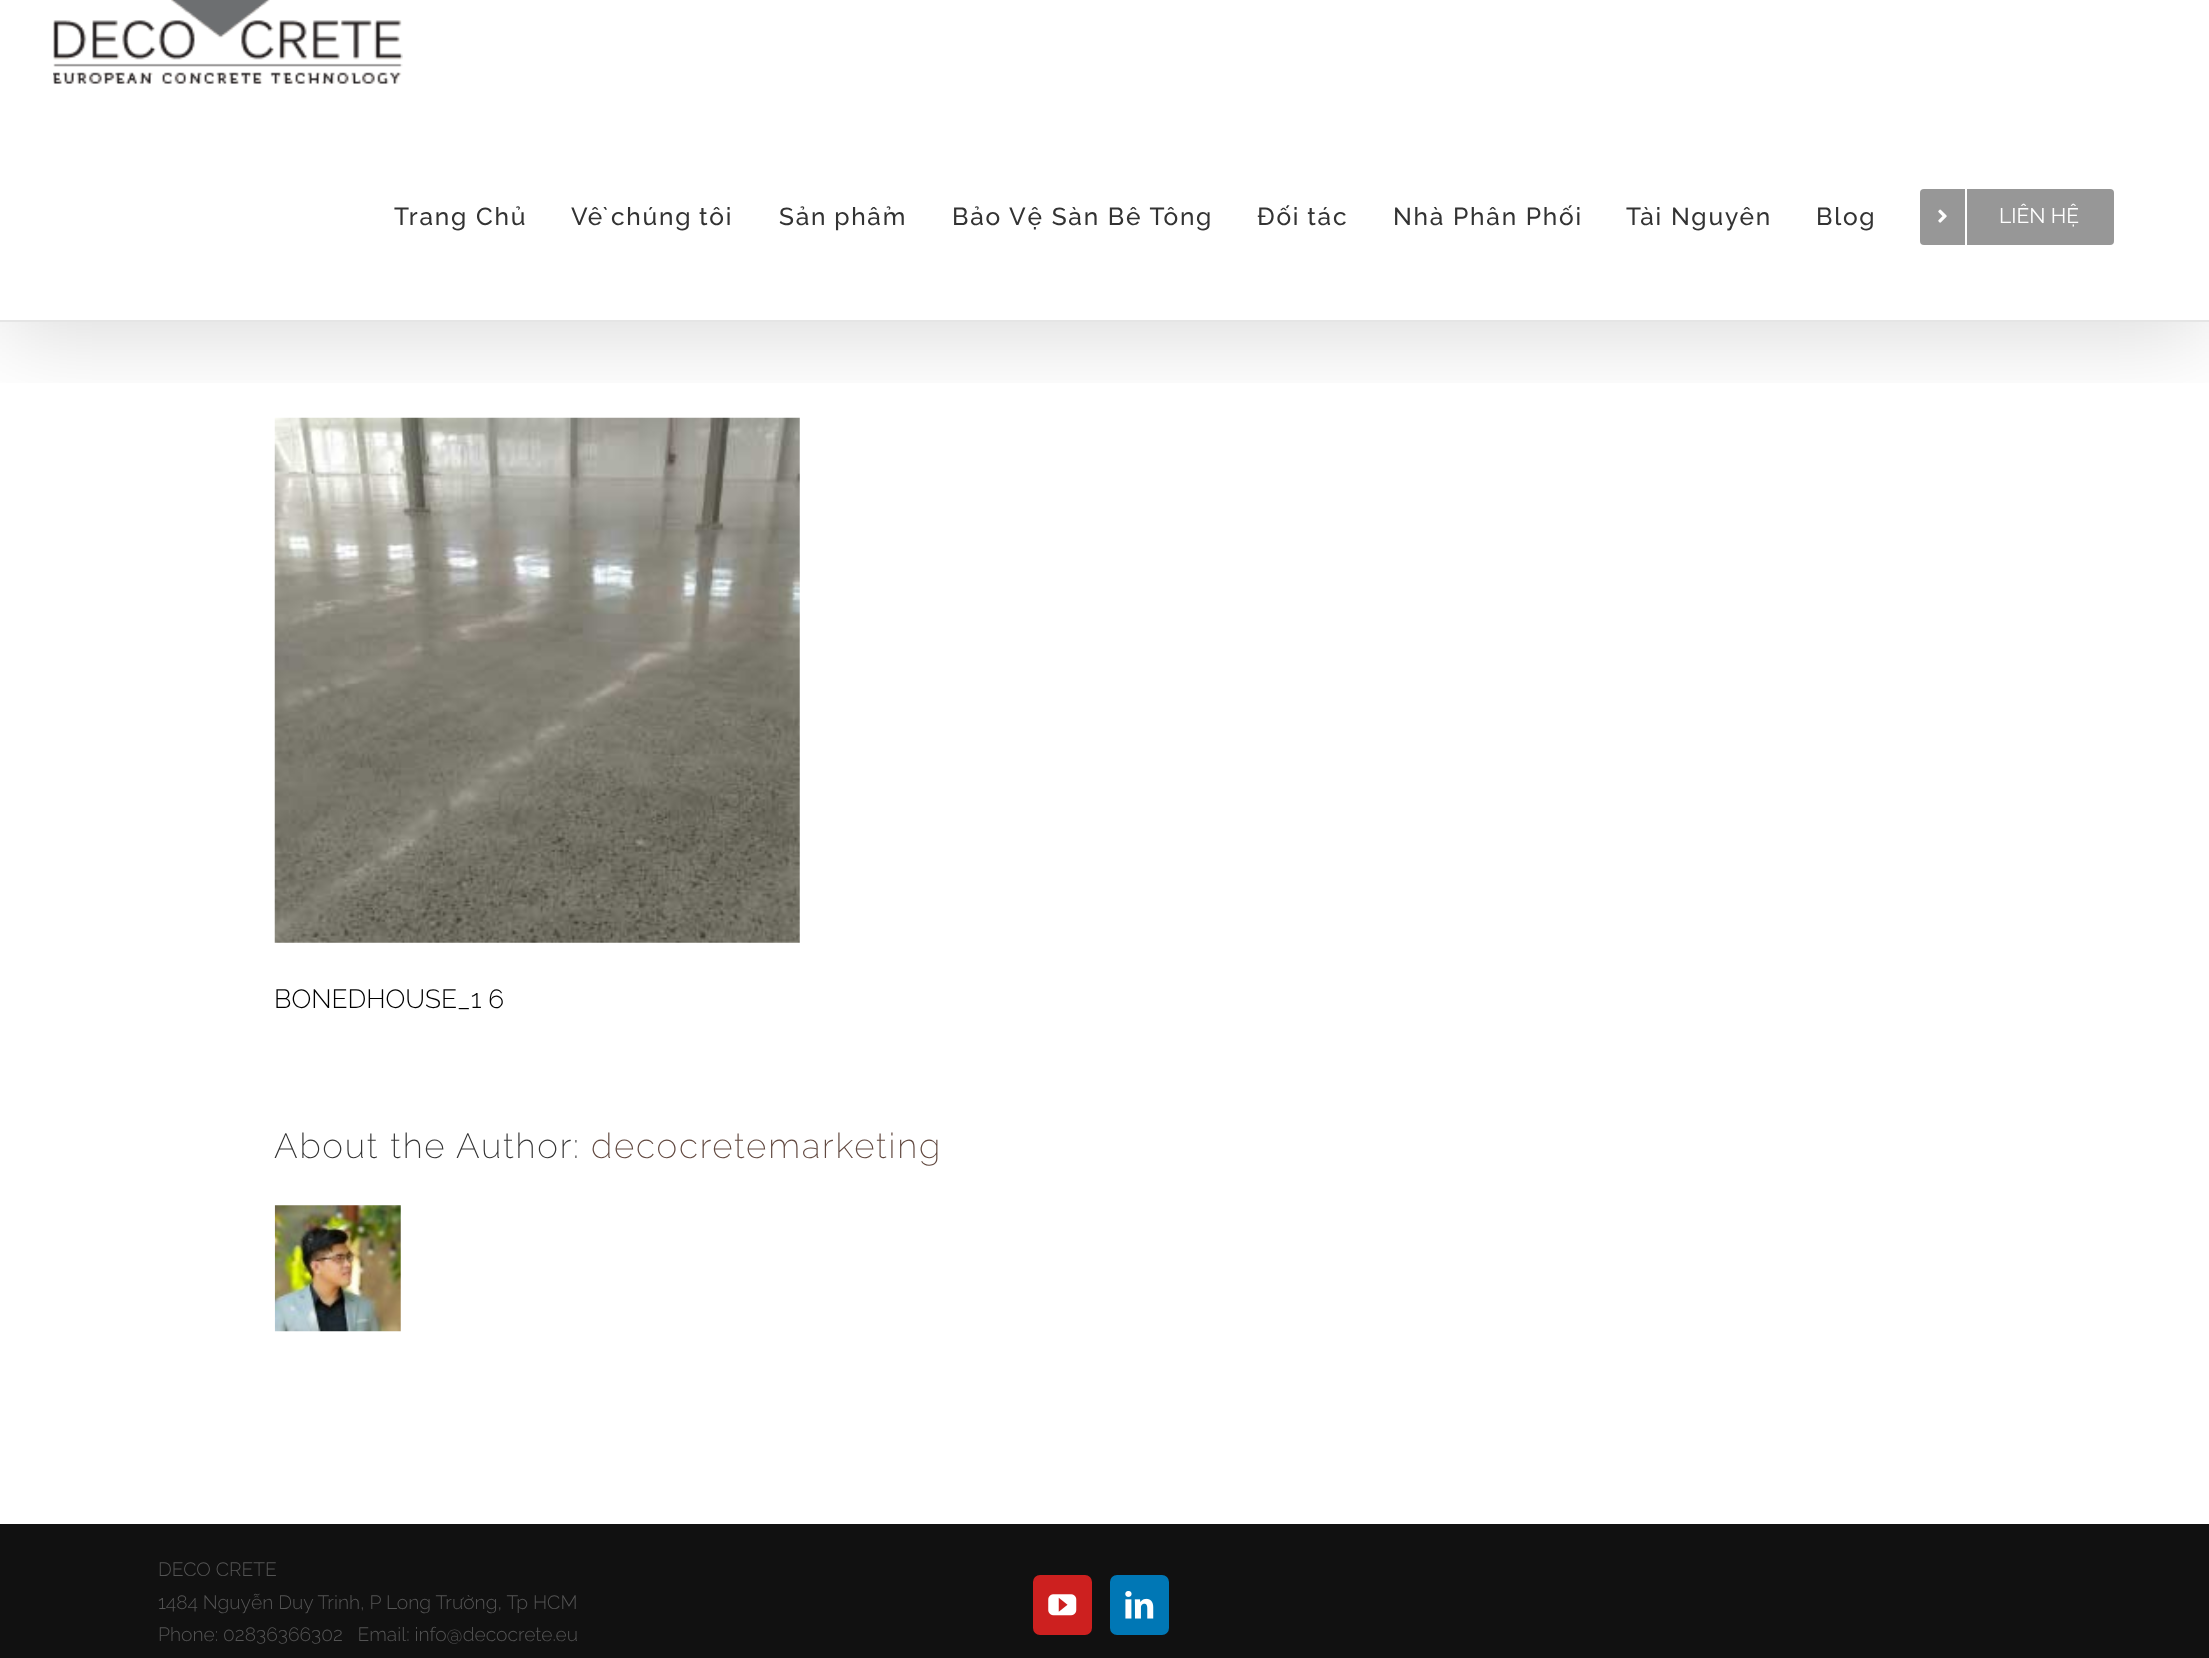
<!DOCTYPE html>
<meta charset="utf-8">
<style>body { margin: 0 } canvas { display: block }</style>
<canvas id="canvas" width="2209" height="1658"></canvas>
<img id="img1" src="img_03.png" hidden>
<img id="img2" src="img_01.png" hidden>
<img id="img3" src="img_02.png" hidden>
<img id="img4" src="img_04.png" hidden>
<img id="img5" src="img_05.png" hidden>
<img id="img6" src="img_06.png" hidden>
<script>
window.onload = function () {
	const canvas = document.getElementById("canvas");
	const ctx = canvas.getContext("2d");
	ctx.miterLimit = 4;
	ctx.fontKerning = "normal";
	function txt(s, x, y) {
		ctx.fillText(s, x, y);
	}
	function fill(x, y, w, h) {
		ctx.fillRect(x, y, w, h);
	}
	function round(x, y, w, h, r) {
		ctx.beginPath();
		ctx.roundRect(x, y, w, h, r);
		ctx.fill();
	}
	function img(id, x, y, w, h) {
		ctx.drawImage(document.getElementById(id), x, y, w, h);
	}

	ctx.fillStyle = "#FFFFFF";
	fill(0, 0, 2209, 1658);
	img("img1", 274, 417, 526, 526);
	ctx.save();
	ctx.beginPath();
	ctx.rect(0, 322, 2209, 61);
	ctx.clip();
	ctx.fillStyle = "rgba(0, 0, 0, 0.14)";
	ctx.filter = "blur(44px)";
	ctx.beginPath();
	ctx.rect(4, -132, 2203, 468);
	ctx.fill();
	ctx.filter = "none";
	ctx.restore();
	ctx.fillStyle = "#E5E5E5";
	fill(0, 320, 2209, 2);
	img("img2", 53, 0, 350, 84);
	ctx.fillStyle = "#979797";
	round(1920, 189, 194, 56, 4);
	ctx.fillStyle = "#FFFFFF";
	fill(1965, 189, 2, 56);
	img("img3", 1938, 209, 9, 14);
	img("img4", 274, 1205, 127, 127);
	ctx.fillStyle = "#111111";
	fill(0, 1524, 2209, 134);
	ctx.fillStyle = "#CD201F";
	ctx.beginPath();
	ctx.roundRect(1034, 1576, 57, 58, 6);
	ctx.fill();
	ctx.strokeStyle = "#CD201F";
	ctx.lineWidth = 2;
	ctx.stroke();
	img("img5", 1048, 1594, 29, 22);
	ctx.fillStyle = "#0077B5";
	ctx.beginPath();
	ctx.roundRect(1111, 1576, 57, 58, 6);
	ctx.fill();
	ctx.strokeStyle = "#0077B5";
	ctx.stroke();
	img("img6", 1125, 1591, 29, 28);
	ctx.letterSpacing = "1.75px";
	ctx.font = "500 24.5px Raleway";
	ctx.fillStyle = "#333333";
	txt("Trang Chủ", 394, 225);
	ctx.wordSpacing = "-1px";
	txt("Về chúng tôi", 571, 225);
	txt("Sản phẩm", 779, 225);
	ctx.wordSpacing = "0px";
	txt("Bảo Vệ Sàn Bê Tông", 952, 225);
	ctx.wordSpacing = "-1px";
	txt("Đối tác", 1257, 225);
	ctx.wordSpacing = "0px";
	txt("Nhà Phân Phối", 1393, 225);
	txt("Tài Nguyên", 1626, 225);
	txt("Blog", 1816, 225);
	ctx.letterSpacing = "0px";
	ctx.font = "21px Raleway";
	ctx.fillStyle = "#FFFFFF";
	txt("LIÊN HỆ", 1999, 223);
	ctx.font = "300 26.25px Raleway";
	ctx.fillStyle = "#000000";
	txt("BONEDHOUSE_1 6", 274, 1008);
	ctx.letterSpacing = "1.75px";
	ctx.font = "200 35px Raleway";
	ctx.fillStyle = "#333333";
	txt("About the Author:", 274, 1158);
	ctx.fillStyle = "#61483F";
	txt("decocretemarketing", 591, 1158);
	ctx.letterSpacing = "0px";
	ctx.font = "300 19.25px Raleway";
	ctx.fillStyle = "#545454";
	txt("DECO CRETE", 158, 1576);
	txt("1484 Nguyễn Duy Trinh, P Long Trường, Tp HCM", 158, 1609);
	txt("Phone: 02836366302   Email: info@decocrete.eu", 158, 1641);
};
</script>
